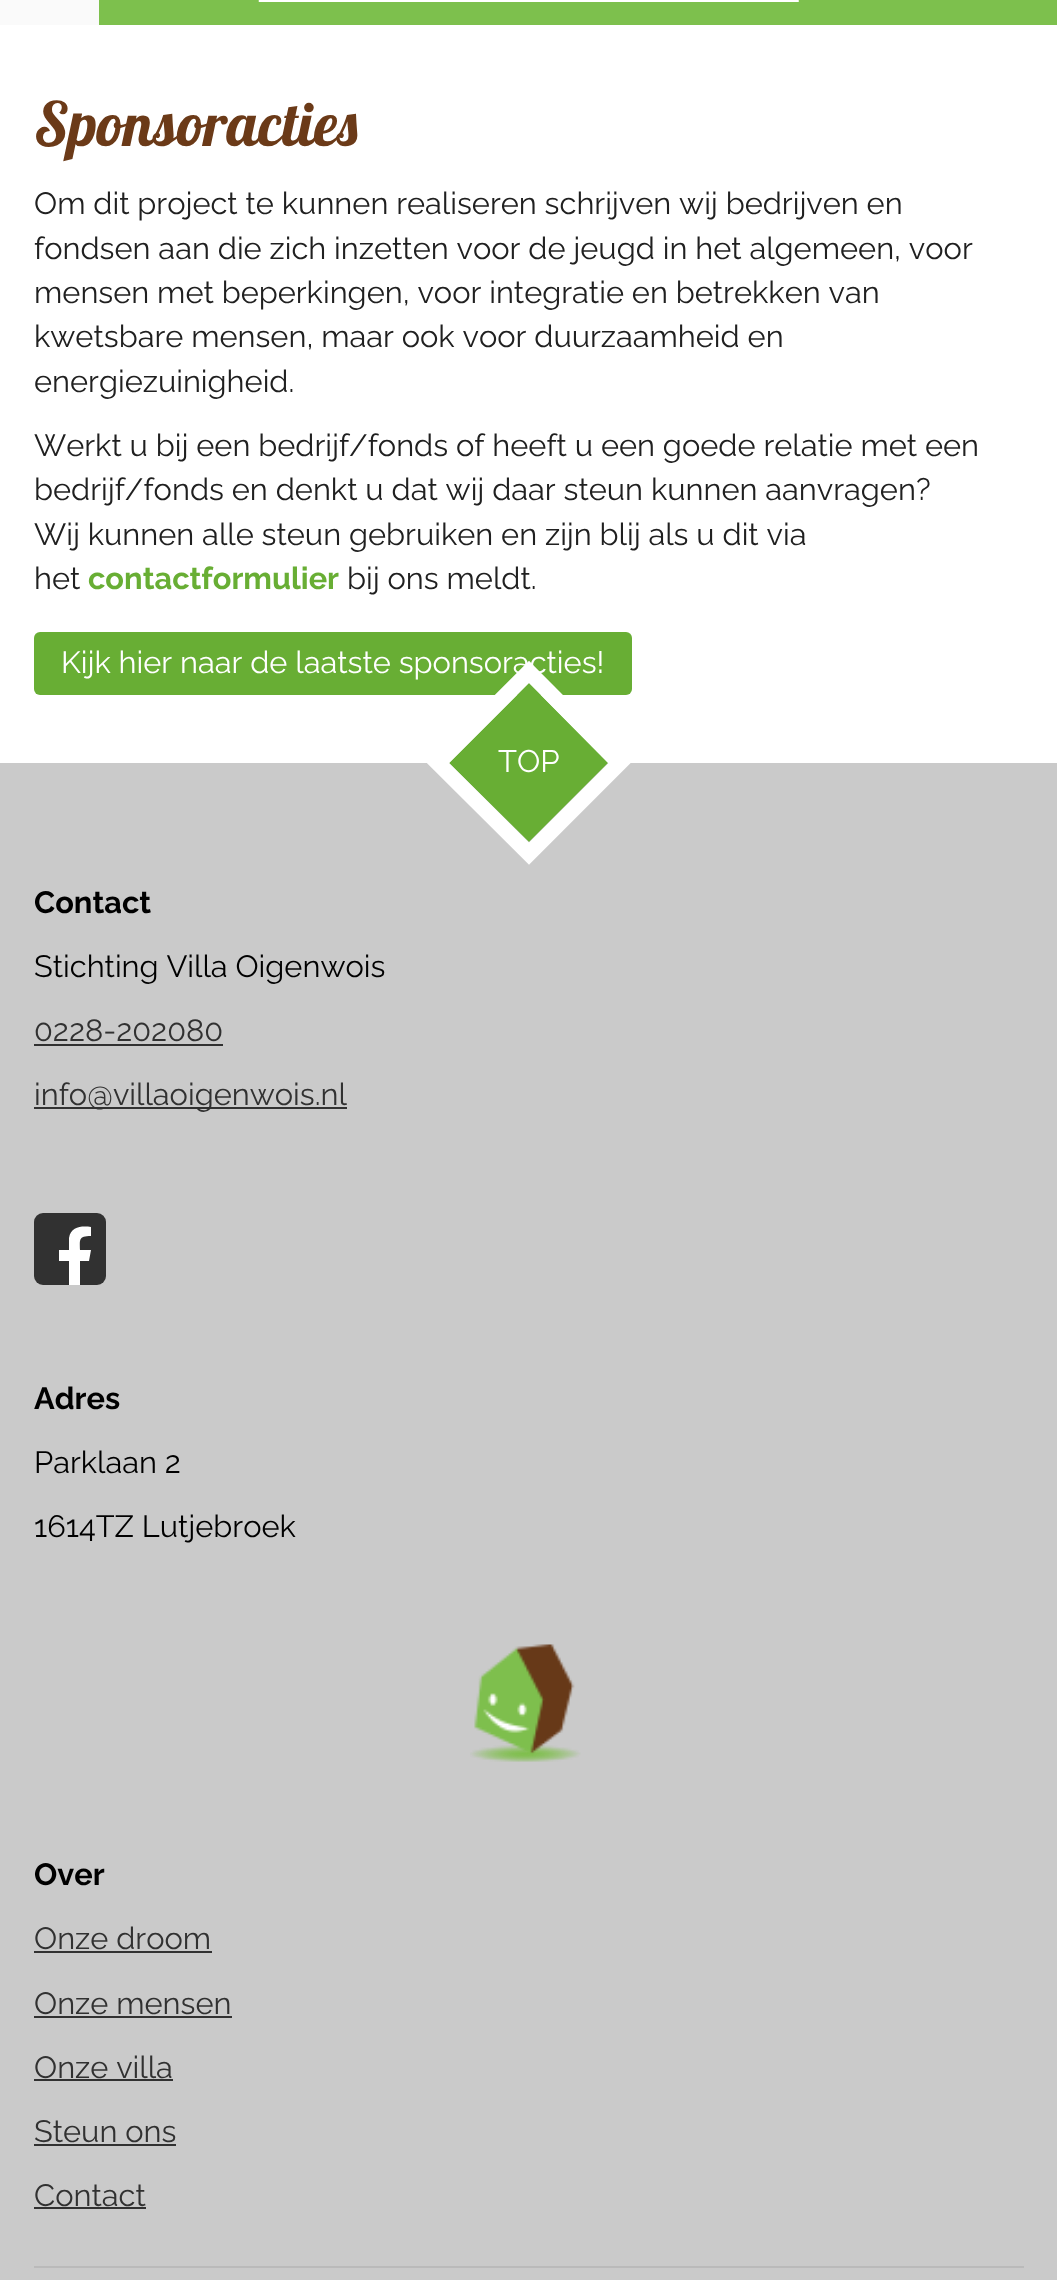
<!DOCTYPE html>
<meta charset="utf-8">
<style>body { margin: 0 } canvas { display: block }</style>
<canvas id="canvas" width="1057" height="2280"></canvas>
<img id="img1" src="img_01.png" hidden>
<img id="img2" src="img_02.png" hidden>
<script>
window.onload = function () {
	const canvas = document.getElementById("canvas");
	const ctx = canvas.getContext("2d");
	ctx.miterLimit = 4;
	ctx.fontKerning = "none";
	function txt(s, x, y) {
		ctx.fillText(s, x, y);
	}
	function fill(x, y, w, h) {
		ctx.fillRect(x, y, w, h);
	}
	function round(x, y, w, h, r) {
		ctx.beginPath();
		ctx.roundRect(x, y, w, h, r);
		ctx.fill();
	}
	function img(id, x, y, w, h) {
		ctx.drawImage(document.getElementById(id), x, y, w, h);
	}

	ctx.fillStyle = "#FFFFFF";
	fill(0, 0, 1057, 2280);
	ctx.fillStyle = "#FAFAFA";
	fill(0, 0, 99, 25);
	ctx.fillStyle = "#7DC04D";
	fill(99, 0, 958, 25);
	img("img1", 258, 0, 541, 2);
	ctx.fillStyle = "#68AE34";
	round(34, 632, 598, 63, 6);
	ctx.fillStyle = "#CACACA";
	fill(0, 763, 1057, 1517);
	ctx.fillStyle = "#68AE34";
	ctx.beginPath();
	ctx.moveTo(529, 683);
	ctx.lineTo(608, 763);
	ctx.lineTo(529, 842);
	ctx.lineTo(449, 763);
	ctx.closePath();
	ctx.fill();
	ctx.beginPath();
	ctx.moveTo(529, 672);
	ctx.lineTo(619.5, 763);
	ctx.lineTo(529, 853.5);
	ctx.lineTo(438, 763);
	ctx.closePath();
	ctx.strokeStyle = "#FFFFFF";
	ctx.lineWidth = 15.8;
	ctx.stroke();
	ctx.fillStyle = "#313131";
	fill(34, 1044, 189, 2);
	fill(34, 1107, 313, 2);
	round(34, 1213, 72, 72, 9);
	ctx.fillStyle = "#FFFFFF";
	ctx.beginPath();
	ctx.moveTo(89, 1261);
	ctx.lineTo(80, 1261);
	ctx.lineTo(80, 1285);
	ctx.lineTo(69, 1285);
	ctx.lineTo(69, 1261);
	ctx.lineTo(59, 1261);
	ctx.lineTo(59, 1250);
	ctx.lineTo(69, 1250);
	ctx.lineTo(69, 1238);
	ctx.bezierCurveTo(71, 1226, 82, 1226, 91, 1227);
	ctx.lineTo(91, 1236);
	ctx.bezierCurveTo(78, 1236, 80, 1240, 80, 1250);
	ctx.lineTo(91, 1250);
	ctx.closePath();
	ctx.fill();
	img("img2", 470, 1644, 111, 118);
	ctx.fillStyle = "#313131";
	fill(34, 1951, 178, 2);
	fill(34, 2016, 198, 2);
	fill(34, 2079, 139, 2);
	fill(34, 2144, 142, 2);
	fill(34, 2207, 112, 2);
	ctx.fillStyle = "#BABABA";
	fill(34, 2266, 990, 2);
	ctx.font = "60.75px Lobster";
	ctx.fillStyle = "#6B3A18";
	txt("Sponsoracties", 34, 146);
	ctx.font = "30.8px Raleway";
	ctx.fillStyle = "#202020";
	txt("Om dit project te kunnen realiseren schrijven wij bedrijven en", 34, 214);
	txt("fondsen aan die zich inzetten voor de jeugd in het algemeen, voor", 34, 259);
	txt("mensen met beperkingen, voor integratie en betrekken van", 34, 303);
	txt("kwetsbare mensen, maar ook voor duurzaamheid en", 34, 347);
	txt("energiezuinigheid.", 34, 392);
	txt("Werkt u bij een bedrijf/fonds of heeft u een goede relatie met een", 34, 456);
	txt("bedrijf/fonds en denkt u dat wij daar steun kunnen aanvragen?", 34, 500);
	txt("Wij kunnen alle steun gebruiken en zijn blij als u dit via", 34, 545);
	txt("het", 34, 589);
	ctx.font = "bold 30.8px Raleway";
	ctx.fillStyle = "#68AE34";
	txt("contactformulier", 88, 589);
	ctx.font = "30.8px Raleway";
	ctx.fillStyle = "#202020";
	txt("bij ons meldt.", 347, 589);
	ctx.fillStyle = "#FFFFFF";
	txt("Kijk hier naar de laatste sponsoracties!", 61, 673);
	ctx.font = "31px Raleway";
	txt("TOP", 498, 772);
	ctx.font = "bold 30.8px Raleway";
	ctx.fillStyle = "#000000";
	txt("Contact", 34, 913);
	ctx.font = "30.8px Raleway";
	txt("Stichting Villa Oigenwois", 34, 977);
	ctx.fillStyle = "#313131";
	txt("0228-202080", 34, 1041);
	txt("info@villaoigenwois.nl", 34, 1105);
	ctx.font = "bold 30.8px Raleway";
	ctx.fillStyle = "#000000";
	txt("Adres", 34, 1409);
	ctx.font = "30.8px Raleway";
	txt("Parklaan 2", 34, 1473);
	txt("1614TZ Lutjebroek", 34, 1537);
	ctx.font = "bold 30.8px Raleway";
	txt("Over", 34, 1885);
	ctx.font = "30.8px Raleway";
	ctx.fillStyle = "#313131";
	txt("Onze droom", 34, 1949);
	txt("Onze mensen", 34, 2014);
	txt("Onze villa", 34, 2078);
	txt("Steun ons", 34, 2142);
	txt("Contact", 34, 2206);
};
</script>
